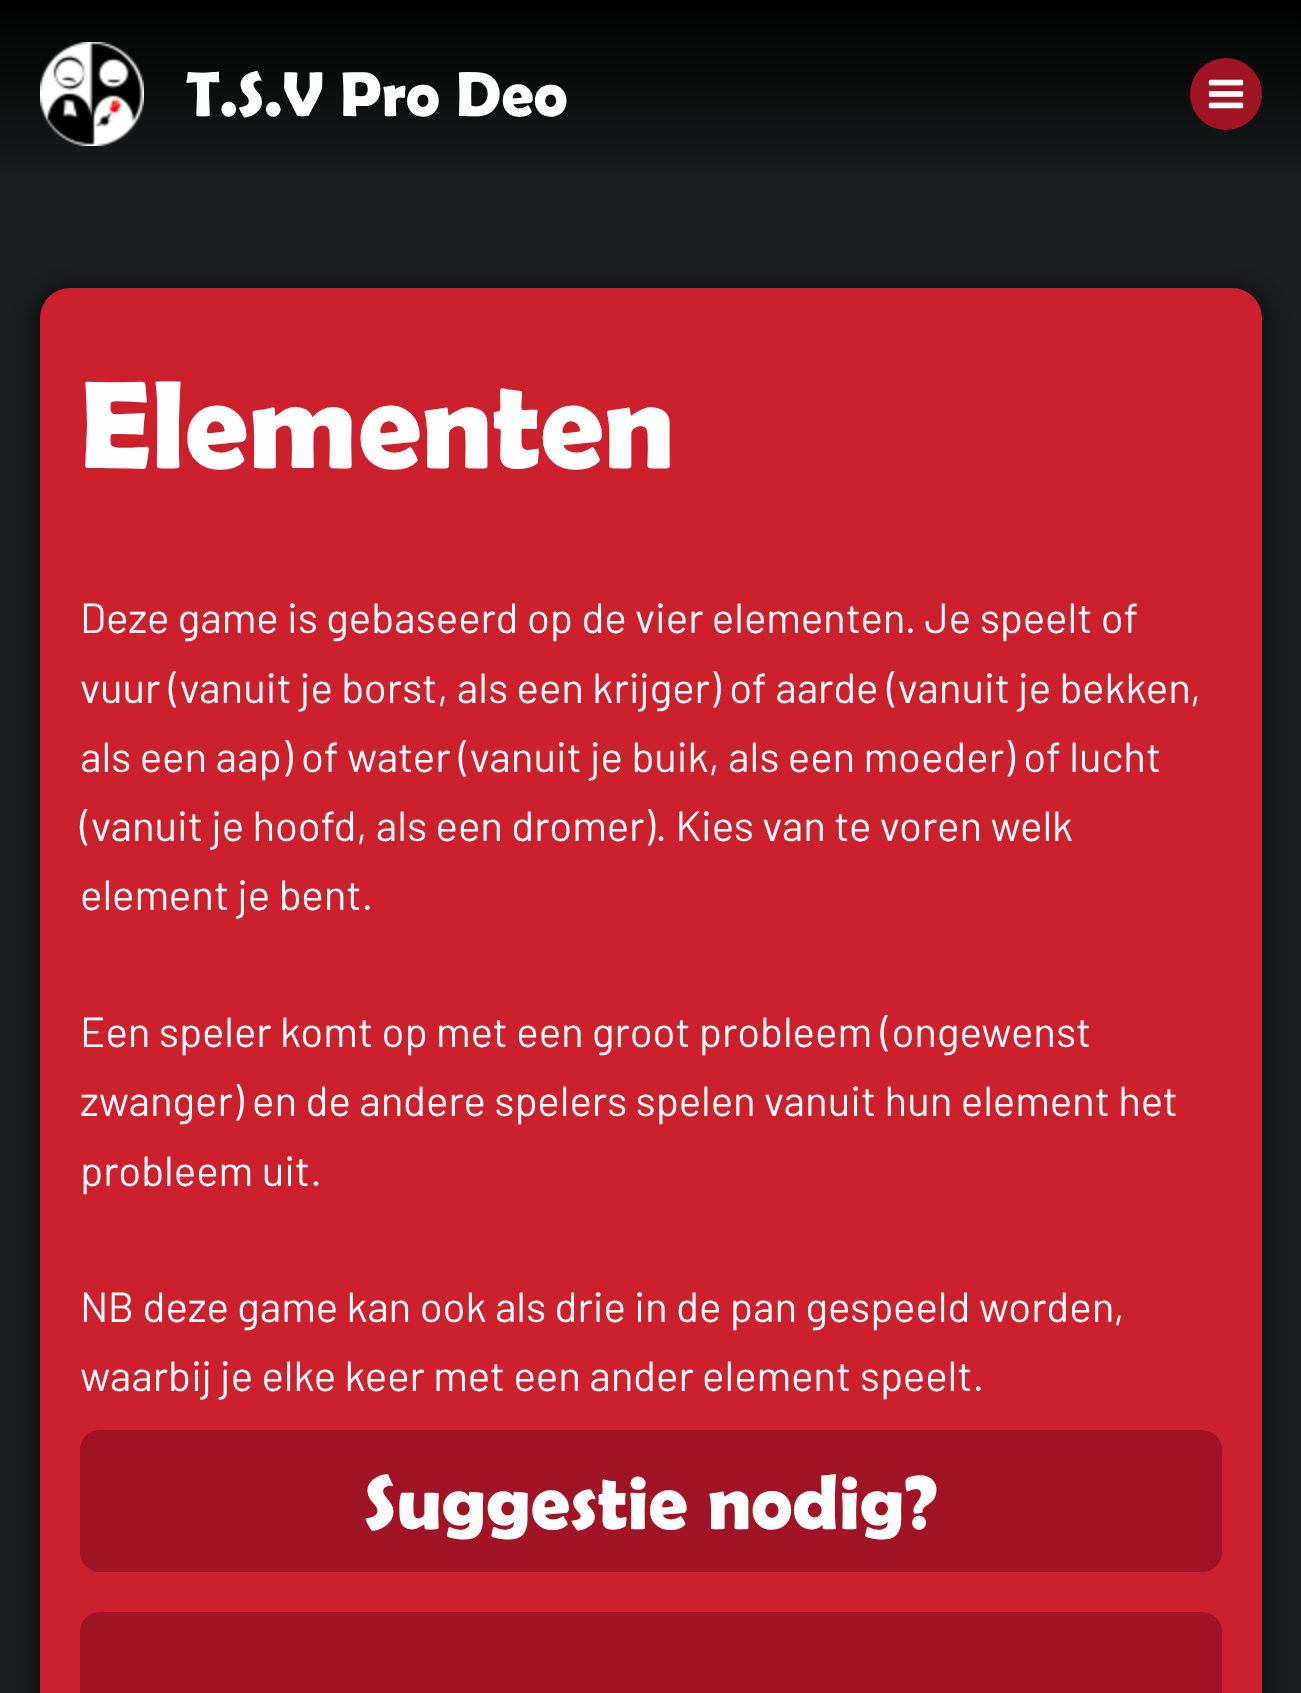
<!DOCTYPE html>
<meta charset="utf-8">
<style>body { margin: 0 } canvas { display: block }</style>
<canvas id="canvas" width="1301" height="1693"></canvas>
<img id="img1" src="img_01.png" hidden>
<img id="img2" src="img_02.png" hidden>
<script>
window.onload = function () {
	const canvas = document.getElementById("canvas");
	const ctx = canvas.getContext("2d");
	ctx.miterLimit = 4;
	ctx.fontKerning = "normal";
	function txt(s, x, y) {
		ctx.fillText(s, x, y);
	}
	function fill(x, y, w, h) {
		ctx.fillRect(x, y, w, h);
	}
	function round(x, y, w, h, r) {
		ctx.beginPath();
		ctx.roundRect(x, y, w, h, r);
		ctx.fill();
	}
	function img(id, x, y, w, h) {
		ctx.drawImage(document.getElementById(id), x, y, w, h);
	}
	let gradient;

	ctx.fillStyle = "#1A1E1E";
	fill(0, 0, 1301, 1693);
	gradient = ctx.createLinearGradient(651, 0, 651, 188);
	gradient.addColorStop(0, "#000000");
	gradient.addColorStop(1, "#1A1E1E");
	ctx.fillStyle = gradient;
	fill(0, 0, 1301, 172);
	img("img1", 40, 42, 104, 104);
	ctx.fillStyle = "#A01426";
	ctx.beginPath();
	ctx.arc(1226, 94, 36, 0, Math.PI * 2);
	ctx.fill();
	img("img2", 1208, 79, 36, 30);
	ctx.fillStyle = "rgba(0, 0, 0, 0.5)";
	ctx.filter = "blur(10px)";
	ctx.beginPath();
	ctx.roundRect(34, 288, 1234, 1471, 36);
	ctx.fill();
	ctx.filter = "none";
	ctx.fillStyle = "#CC202D";
	round(40, 288, 1222, 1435, 30);
	ctx.fillStyle = "#A01426";
	round(80, 1430, 1142, 142, 20);
	round(80, 1612, 1142, 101, 20);
	ctx.font = "600 64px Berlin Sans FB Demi";
	ctx.fillStyle = "#FEFEFE";
	txt("T.S.V Pro Deo", 186, 116);
	ctx.font = "600 126px Berlin Sans FB Demi";
	txt("Elementen", 80, 468);
	ctx.font = "42px Barlow";
	txt("Deze game is gebaseerd op de vier elementen. Je speelt of", 80, 633);
	txt("vuur (vanuit je borst, als een krijger) of aarde (vanuit je bekken,", 80, 703);
	txt("als een aap) of water (vanuit je buik, als een moeder) of lucht", 80, 772);
	txt("(vanuit je hoofd, als een dromer). Kies van te voren welk", 80, 841);
	txt("element je bent.", 80, 910);
	txt("Een speler komt op met een groot probleem (ongewenst", 80, 1047);
	txt("zwanger) en de andere spelers spelen vanuit hun element het", 80, 1116);
	txt("probleem uit.", 80, 1186);
	txt("NB deze game kan ook als drie in de pan gespeeld worden,", 80, 1322);
	txt("waarbij je elke keer met een ander element speelt.", 80, 1391);
	ctx.font = "600 78px Berlin Sans FB Demi";
	txt("Suggestie nodig?", 364, 1529);
};
</script>
